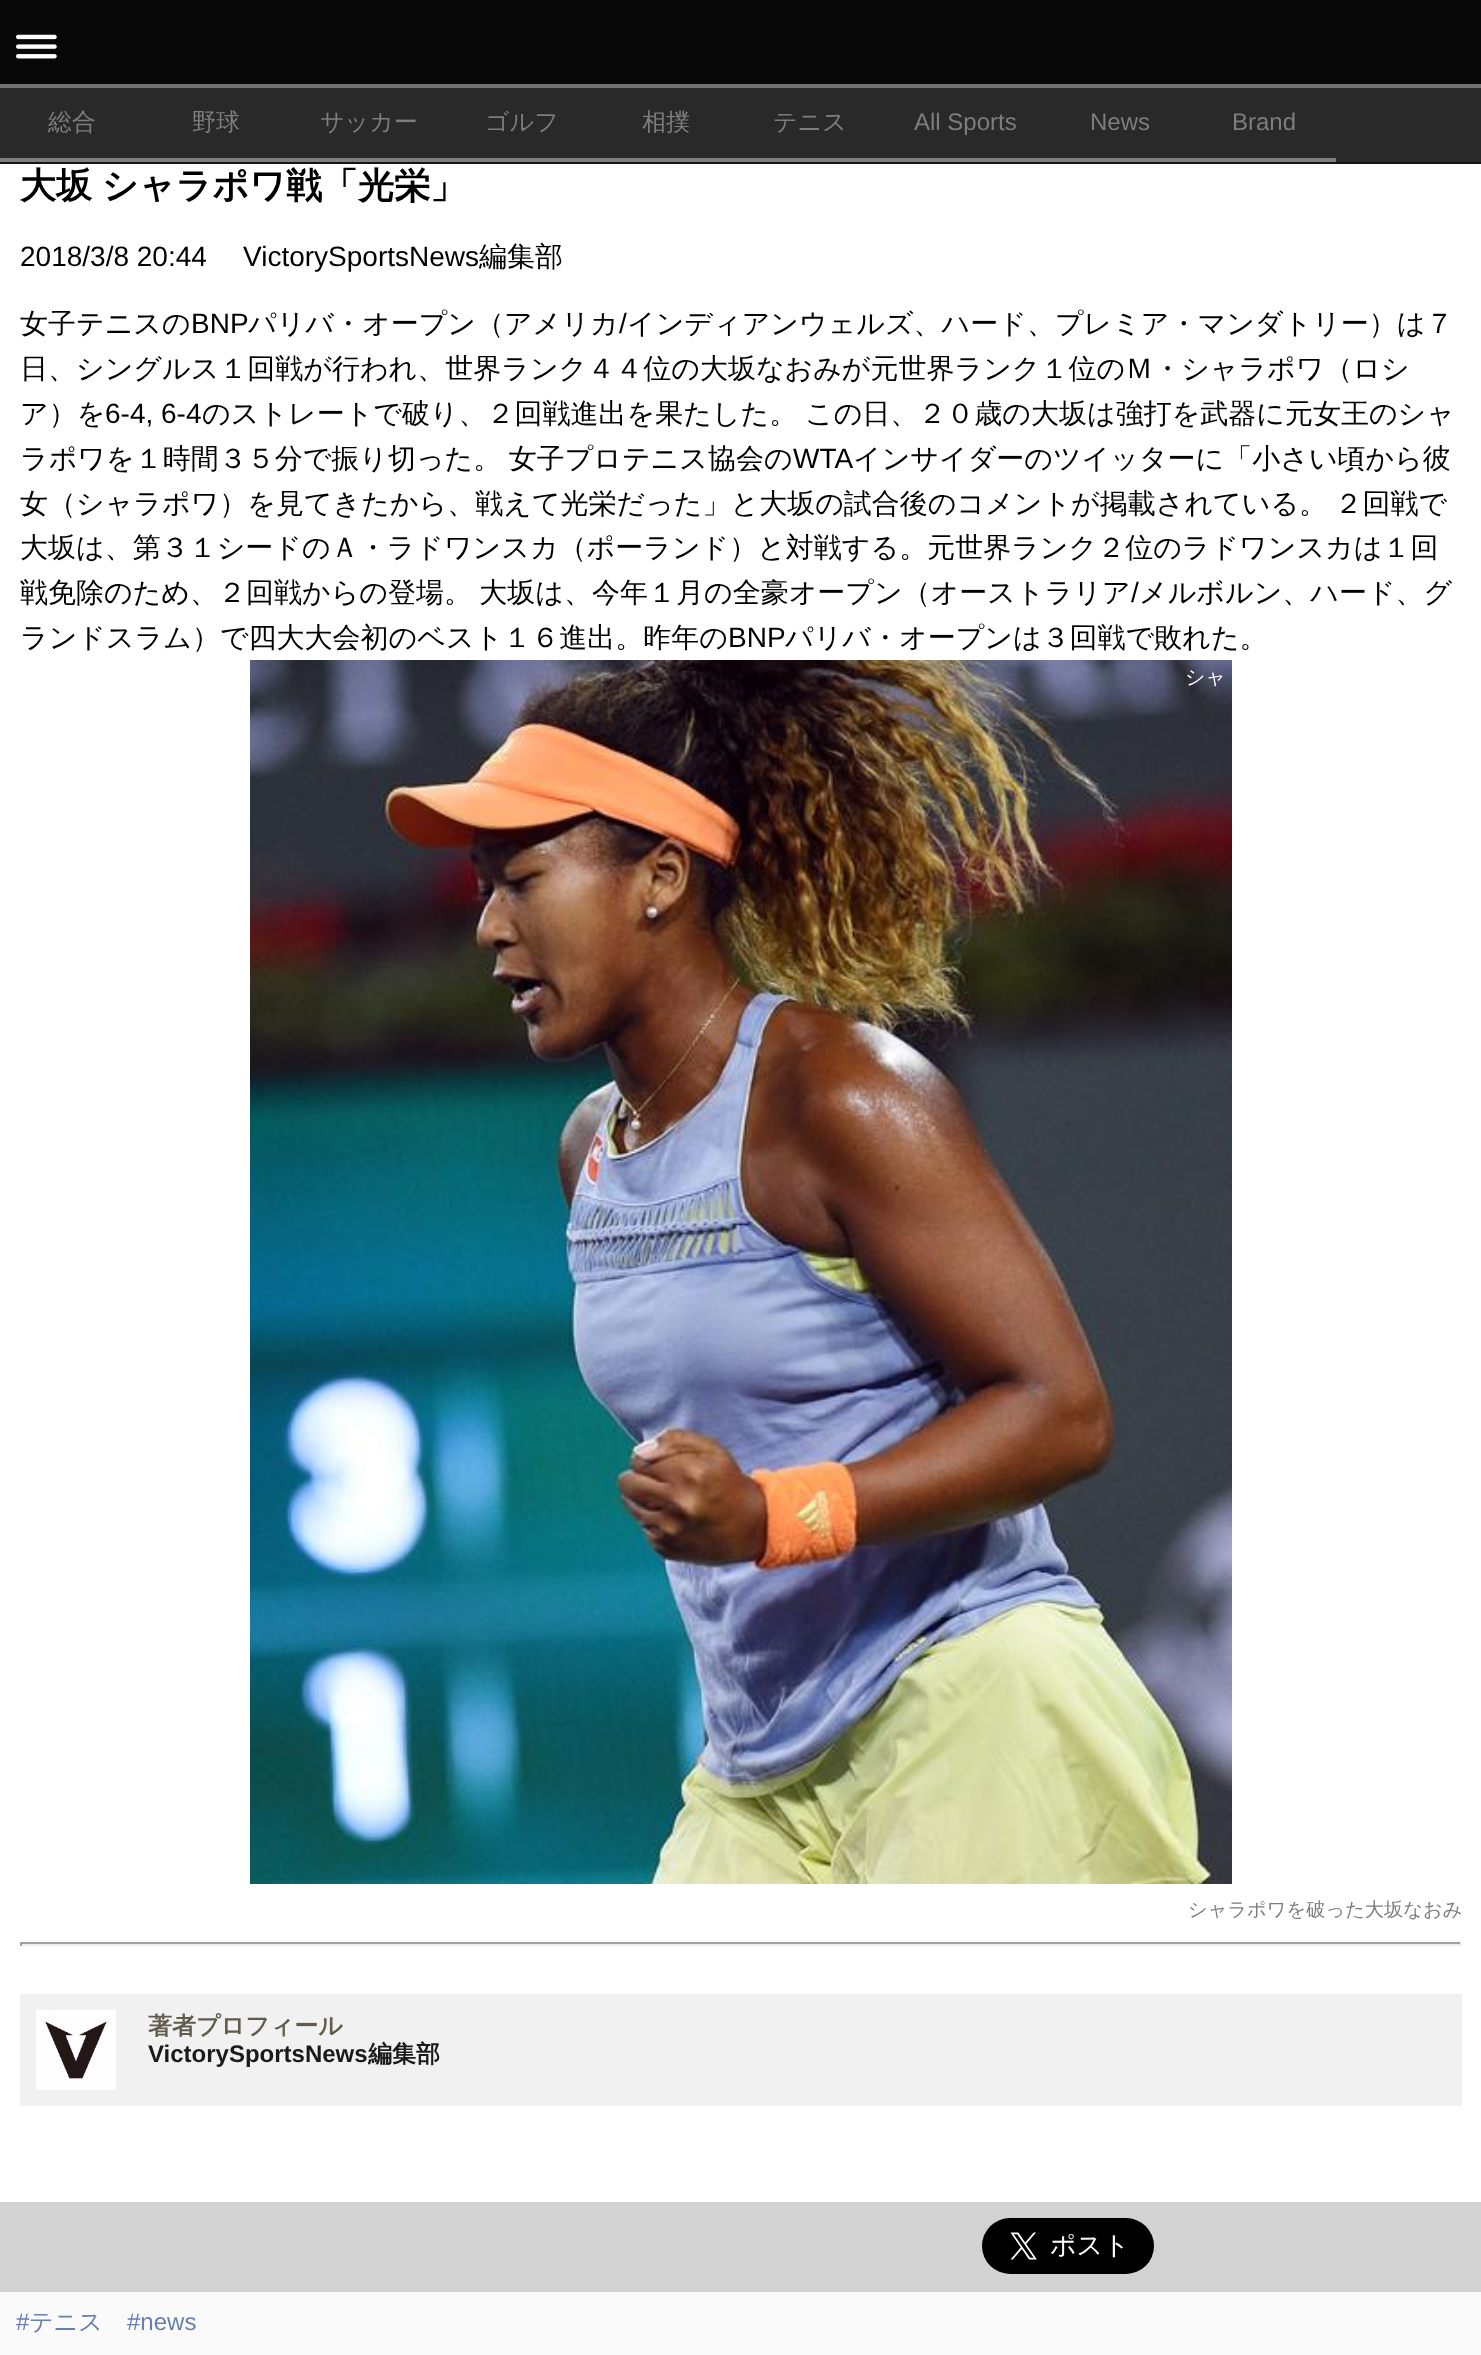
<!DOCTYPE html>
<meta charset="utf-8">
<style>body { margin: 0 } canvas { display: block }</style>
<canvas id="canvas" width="1481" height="2355"></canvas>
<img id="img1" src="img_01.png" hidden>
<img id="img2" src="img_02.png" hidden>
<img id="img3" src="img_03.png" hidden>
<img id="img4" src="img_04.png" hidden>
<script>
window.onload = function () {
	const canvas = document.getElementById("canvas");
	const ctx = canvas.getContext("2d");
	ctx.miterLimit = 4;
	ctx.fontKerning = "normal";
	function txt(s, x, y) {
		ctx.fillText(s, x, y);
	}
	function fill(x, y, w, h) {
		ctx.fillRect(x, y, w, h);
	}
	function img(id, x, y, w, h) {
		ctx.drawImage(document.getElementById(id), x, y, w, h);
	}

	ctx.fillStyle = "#141414";
	fill(0, 0, 1481, 2355);
	ctx.fillStyle = "#080808";
	fill(0, 0, 1481, 84);
	img("img1", 16, 34, 41, 25);
	ctx.fillStyle = "#727272";
	fill(0, 84, 1481, 4);
	ctx.fillStyle = "#292929";
	fill(0, 88, 1481, 74);
	ctx.fillStyle = "#7F7F7F";
	fill(0, 158, 1336, 4);
	ctx.fillStyle = "#FFFFFF";
	fill(0, 164, 1481, 2038);
	img("img2", 250, 660, 982, 1224);
	ctx.fillStyle = "#9F9F9F";
	fill(20, 1942, 1442, 2);
	ctx.fillStyle = "#EEEEEE";
	fill(1460, 1942, 2, 4);
	fill(20, 1944, 1442, 2);
	ctx.fillStyle = "#9F9F9F";
	fill(20, 1942, 2, 4);
	ctx.fillStyle = "#F1F1F1";
	fill(20, 1994, 1442, 112);
	img("img3", 36, 2010, 80, 80);
	ctx.fillStyle = "#D2D2D2";
	fill(0, 2202, 1481, 90);
	img("img4", 982, 2218, 172, 56);
	ctx.fillStyle = "#FAFAFA";
	fill(0, 2292, 1481, 63);
	ctx.font = "500 24px WenQuanYi Zen Hei";
	ctx.fillStyle = "#7D7D7D";
	txt("総合", 48, 130);
	txt("野球", 192, 130);
	txt("サッカー", 320, 130);
	txt("ゴルフ", 485, 130);
	txt("相撲", 642, 130);
	txt("テニス", 773, 130);
	ctx.font = "24px Liberation Sans";
	txt("All Sports", 914, 130);
	txt("News", 1090, 130);
	txt("Brand", 1232, 130);
	ctx.wordSpacing = "-1px";
	ctx.font = "bold 36px WenQuanYi Zen Hei";
	ctx.fillStyle = "#000000";
	txt("大坂 シャラポワ戦「光栄」", 20, 198);
	ctx.wordSpacing = "0px";
	ctx.font = "28px Liberation Sans";
	txt("2018/3/8 20:44", 20, 266);
	txt("VictorySportsNews", 243, 266);
	ctx.font = "500 28px WenQuanYi Zen Hei";
	txt("編集部", 479, 266);
	txt("女子テニスの", 20, 333);
	ctx.font = "28px Liberation Sans";
	txt("BNP", 191, 333);
	ctx.font = "500 28px WenQuanYi Zen Hei";
	txt("パリバ・オープン（アメリカ", 248, 333);
	ctx.font = "28px Liberation Sans";
	txt("/", 619, 333);
	ctx.font = "500 28px WenQuanYi Zen Hei";
	txt("インディアンウェルズ、ハード、プレミア・マンダトリー）は７", 627, 333);
	txt("日、シングルス１回戦が行われ、世界ランク４４位の大坂なおみが元世界ランク１位のＭ・シャラポワ（ロシ", 20, 378);
	txt("ア）を", 20, 423);
	ctx.font = "28px Liberation Sans";
	txt("6-4, 6-4", 105, 423);
	ctx.font = "500 28px WenQuanYi Zen Hei";
	txt("のストレートで破り、２回戦進出を果たした。", 202, 423);
	txt("この日、２０歳の大坂は強打を武器に元女王のシャ", 805, 423);
	ctx.wordSpacing = "-1px";
	txt("ラポワを１時間３５分で振り切った。 女子プロテニス協会の", 20, 468);
	ctx.wordSpacing = "0px";
	ctx.font = "28px Liberation Sans";
	txt("WTA", 793, 468);
	ctx.font = "500 28px WenQuanYi Zen Hei";
	txt("インサイダーのツイッターに「小さい頃から彼", 853, 468);
	ctx.wordSpacing = "-1px";
	txt("女（シャラポワ）を見てきたから、戦えて光栄だった」と大坂の試合後のコメントが掲載されている。 ２回戦で", 20, 513);
	ctx.wordSpacing = "0px";
	txt("大坂は、第３１シードのＡ・ラドワンスカ（ポーランド）と対戦する。元世界ランク２位のラドワンスカは１回", 20, 557);
	ctx.wordSpacing = "-1px";
	txt("戦免除のため、２回戦からの登場。 大坂は、今年１月の全豪オープン（オーストラリア", 20, 602);
	ctx.wordSpacing = "0px";
	ctx.font = "28px Liberation Sans";
	txt("/", 1131, 602);
	ctx.font = "500 28px WenQuanYi Zen Hei";
	txt("メルボルン、ハード、グ", 1139, 602);
	txt("ランドスラム）で四大大会初のベスト１６進出。昨年の", 20, 647);
	ctx.font = "28px Liberation Sans";
	txt("BNP", 728, 647);
	ctx.font = "500 28px WenQuanYi Zen Hei";
	txt("パリバ・オープンは３回戦で敗れた。", 785, 647);
	ctx.font = "500 20px WenQuanYi Zen Hei";
	ctx.fillStyle = "#FFFFFF";
	txt("シャ", 1185, 684);
	ctx.font = "500 19.25px WenQuanYi Zen Hei";
	ctx.fillStyle = "#7D7D7D";
	txt("シャラポワを破った大坂なおみ", 1188, 1916);
	ctx.font = "bold 24px WenQuanYi Zen Hei";
	ctx.fillStyle = "#605C4C";
	txt("著者プロフィール", 148, 2034);
	ctx.font = "bold 24px Liberation Sans";
	ctx.fillStyle = "#1A1A1A";
	txt("VictorySportsNews", 148, 2062);
	ctx.font = "bold 24px WenQuanYi Zen Hei";
	txt("編集部", 368, 2062);
	ctx.font = "24px Liberation Sans";
	ctx.fillStyle = "#6880AD";
	txt("#", 16, 2330);
	ctx.font = "500 24px WenQuanYi Zen Hei";
	txt("テニス", 29, 2330);
	ctx.font = "24px Liberation Sans";
	txt("#news", 127, 2330);
};
</script>
